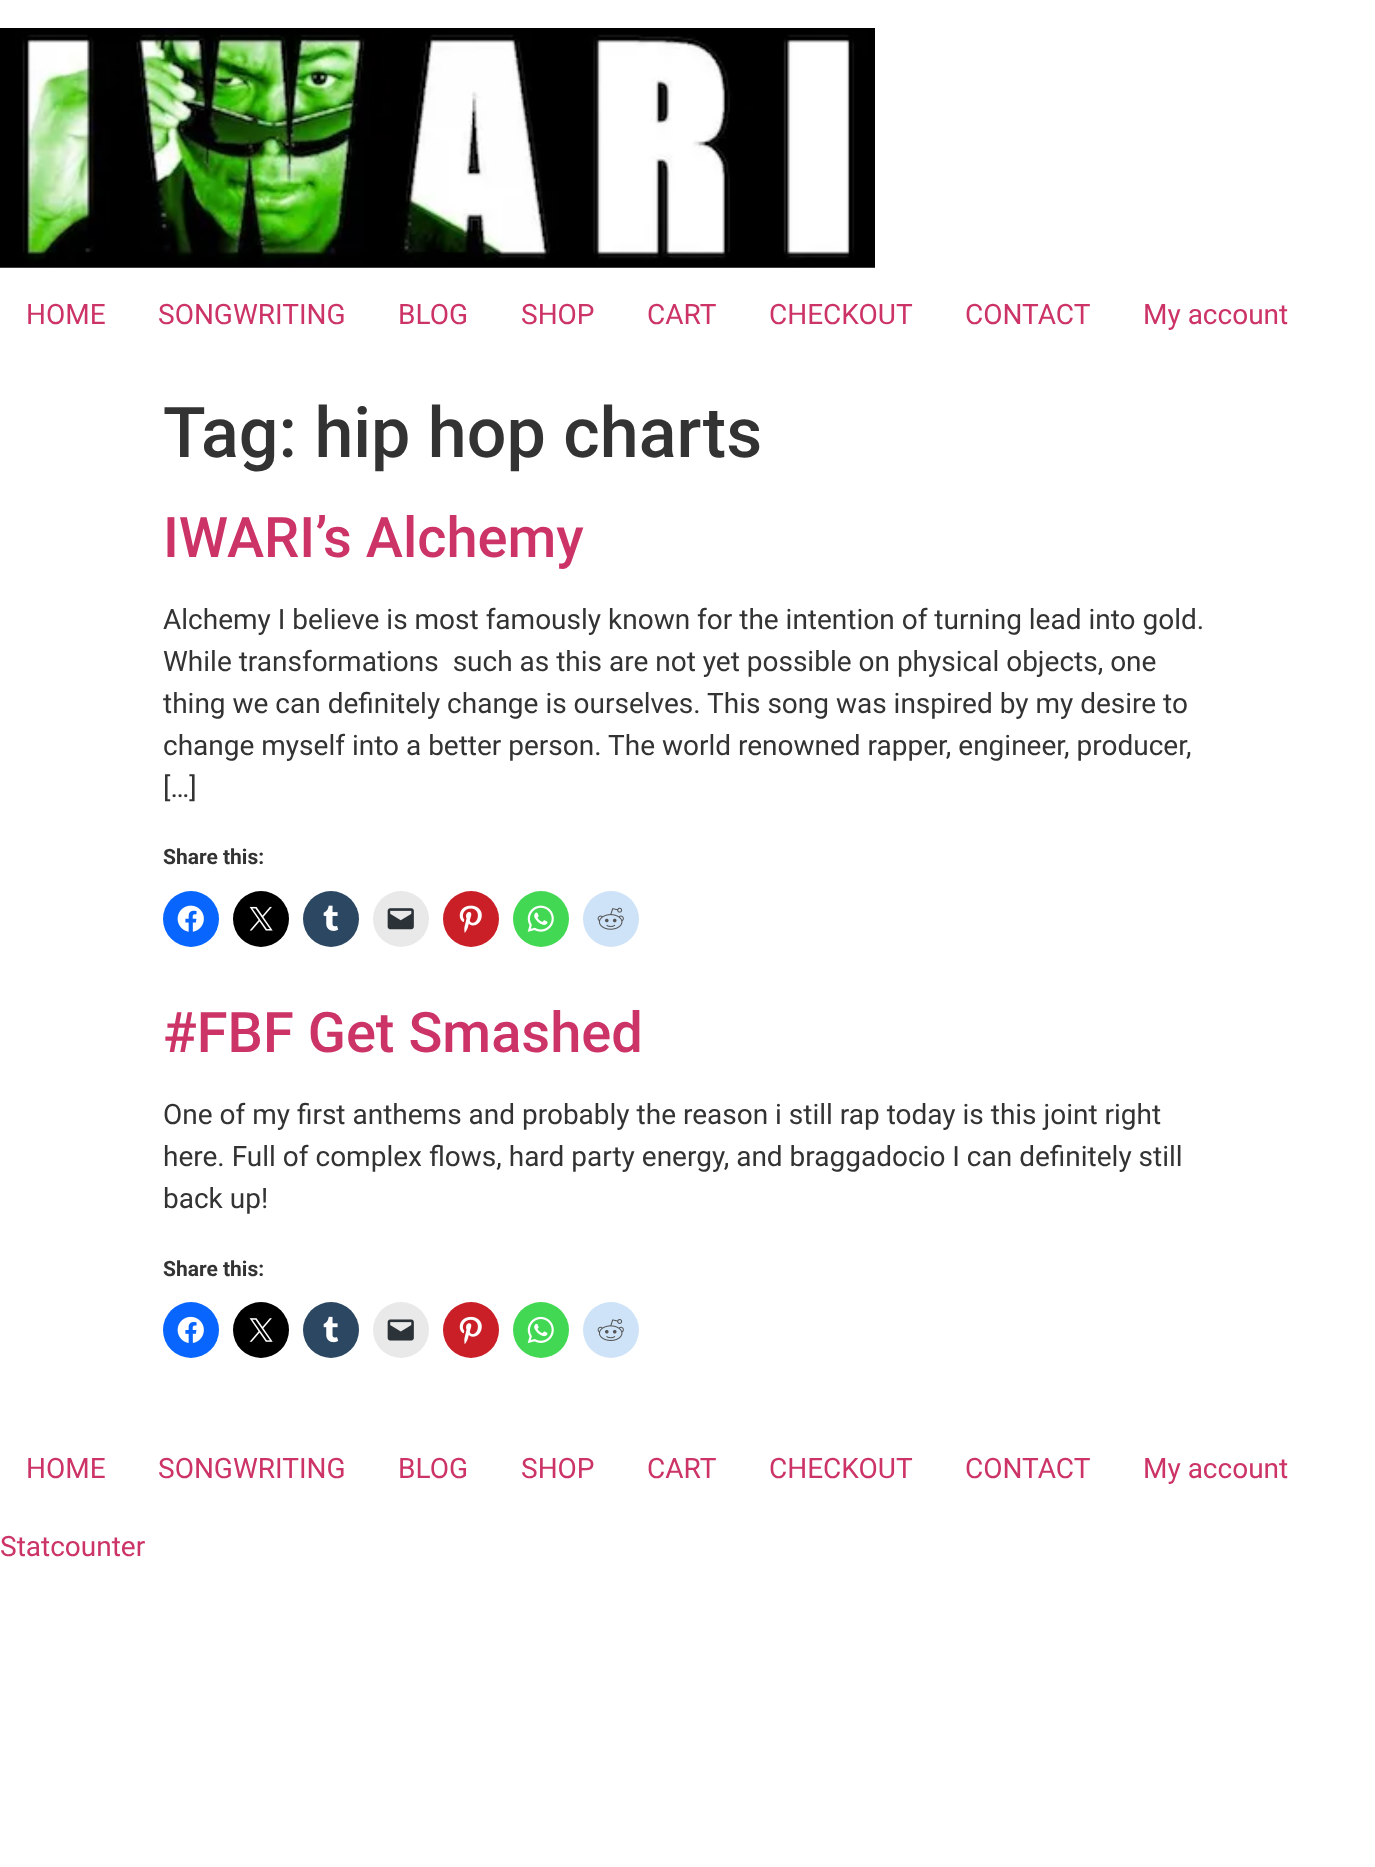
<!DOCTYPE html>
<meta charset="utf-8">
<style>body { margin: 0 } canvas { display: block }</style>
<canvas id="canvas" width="1375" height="1867"></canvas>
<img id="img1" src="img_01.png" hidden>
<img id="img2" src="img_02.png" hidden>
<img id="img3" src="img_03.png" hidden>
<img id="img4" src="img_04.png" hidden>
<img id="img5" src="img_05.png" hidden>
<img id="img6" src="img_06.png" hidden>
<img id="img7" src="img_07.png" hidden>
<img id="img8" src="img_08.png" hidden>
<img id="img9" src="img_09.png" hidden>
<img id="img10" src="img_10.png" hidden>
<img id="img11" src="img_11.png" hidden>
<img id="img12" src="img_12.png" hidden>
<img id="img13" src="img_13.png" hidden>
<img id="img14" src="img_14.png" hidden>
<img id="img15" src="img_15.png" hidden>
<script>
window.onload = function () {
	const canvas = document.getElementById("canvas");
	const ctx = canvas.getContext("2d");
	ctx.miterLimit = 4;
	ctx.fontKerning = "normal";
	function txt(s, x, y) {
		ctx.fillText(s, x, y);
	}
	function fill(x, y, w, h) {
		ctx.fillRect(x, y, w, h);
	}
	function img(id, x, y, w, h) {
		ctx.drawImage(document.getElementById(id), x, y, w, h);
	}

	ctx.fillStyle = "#FFFFFF";
	fill(0, 0, 1375, 1867);
	img("img1", 0, 28, 875, 240);
	ctx.fillStyle = "#0866FF";
	ctx.beginPath();
	ctx.arc(191, 919, 28, 0, Math.PI * 2);
	ctx.fill();
	img("img2", 177, 905, 27, 27);
	ctx.fillStyle = "#000000";
	ctx.beginPath();
	ctx.arc(261, 919, 28, 0, Math.PI * 2);
	ctx.fill();
	img("img3", 249, 906, 24, 25);
	ctx.fillStyle = "#2C4762";
	ctx.beginPath();
	ctx.arc(331, 919, 28, 0, Math.PI * 2);
	ctx.fill();
	img("img4", 323, 905, 16, 26);
	ctx.fillStyle = "#E9E9E9";
	ctx.beginPath();
	ctx.arc(401, 919, 28, 0, Math.PI * 2);
	ctx.fill();
	img("img5", 387, 908, 27, 22);
	ctx.fillStyle = "#CA1F27";
	ctx.beginPath();
	ctx.arc(471, 919, 28, 0, Math.PI * 2);
	ctx.fill();
	img("img6", 459, 905, 23, 28);
	ctx.fillStyle = "#43D854";
	ctx.beginPath();
	ctx.arc(541, 919, 28, 0, Math.PI * 2);
	ctx.fill();
	img("img7", 527, 905, 27, 27);
	ctx.fillStyle = "#CEE3F8";
	ctx.beginPath();
	ctx.arc(611, 919, 28, 0, Math.PI * 2);
	ctx.fill();
	img("img8", 597, 907, 27, 23);
	ctx.fillStyle = "#0866FF";
	ctx.beginPath();
	ctx.arc(191, 1330, 28, 0, Math.PI * 2);
	ctx.fill();
	img("img9", 177, 1316, 27, 27);
	ctx.fillStyle = "#000000";
	ctx.beginPath();
	ctx.arc(261, 1330, 28, 0, Math.PI * 2);
	ctx.fill();
	img("img10", 249, 1318, 24, 24);
	ctx.fillStyle = "#2C4762";
	ctx.beginPath();
	ctx.arc(331, 1330, 28, 0, Math.PI * 2);
	ctx.fill();
	img("img11", 323, 1316, 16, 27);
	ctx.fillStyle = "#E9E9E9";
	ctx.beginPath();
	ctx.arc(401, 1330, 28, 0, Math.PI * 2);
	ctx.fill();
	img("img12", 387, 1319, 27, 22);
	ctx.fillStyle = "#CA1F27";
	ctx.beginPath();
	ctx.arc(471, 1330, 28, 0, Math.PI * 2);
	ctx.fill();
	img("img13", 459, 1316, 23, 28);
	ctx.fillStyle = "#43D854";
	ctx.beginPath();
	ctx.arc(541, 1330, 28, 0, Math.PI * 2);
	ctx.fill();
	img("img14", 527, 1316, 27, 27);
	ctx.fillStyle = "#CEE3F8";
	ctx.beginPath();
	ctx.arc(611, 1330, 28, 0, Math.PI * 2);
	ctx.fill();
	img("img15", 597, 1319, 27, 22);
	ctx.font = "28px Roboto";
	ctx.fillStyle = "#CC3366";
	txt("HOME", 26, 324);
	txt("SONGWRITING", 158, 324);
	txt("BLOG", 398, 324);
	txt("SHOP", 521, 324);
	txt("CART", 647, 324);
	txt("CHECKOUT", 769, 324);
	txt("CONTACT", 965, 324);
	txt("My account", 1143, 324);
	ctx.font = "500 70px Roboto";
	ctx.fillStyle = "#333333";
	txt("Tag: hip hop charts", 163, 457);
	ctx.font = "500 56px Roboto";
	ctx.fillStyle = "#CC3366";
	txt("IWARI’s Alchemy", 163, 557);
	ctx.font = "28px Roboto";
	ctx.fillStyle = "#333333";
	txt("Alchemy I believe is most famously known for the intention of turning lead into gold.", 163, 629);
	txt("While transformations  such as this are not yet possible on physical objects, one", 163, 671);
	txt("thing we can definitely change is ourselves. This song was inspired by my desire to", 163, 713);
	txt("change myself into a better person. The world renowned rapper, engineer, producer,", 163, 755);
	txt("[…]", 163, 797);
	ctx.font = "bold 21px Roboto";
	txt("Share this:", 163, 864);
	ctx.font = "500 56px Roboto";
	ctx.fillStyle = "#CC3366";
	txt("#FBF Get Smashed", 163, 1052);
	ctx.font = "28px Roboto";
	ctx.fillStyle = "#333333";
	txt("One of my first anthems and probably the reason i still rap today is this joint right", 163, 1124);
	txt("here. Full of complex flows, hard party energy, and braggadocio I can definitely still", 163, 1166);
	txt("back up!", 163, 1208);
	ctx.font = "bold 21px Roboto";
	txt("Share this:", 163, 1276);
	ctx.font = "28px Roboto";
	ctx.fillStyle = "#CC3366";
	txt("HOME", 26, 1478);
	txt("SONGWRITING", 158, 1478);
	txt("BLOG", 398, 1478);
	txt("SHOP", 521, 1478);
	txt("CART", 647, 1478);
	txt("CHECKOUT", 769, 1478);
	txt("CONTACT", 965, 1478);
	txt("My account", 1143, 1478);
	txt("Statcounter", 0, 1556);
};
</script>
